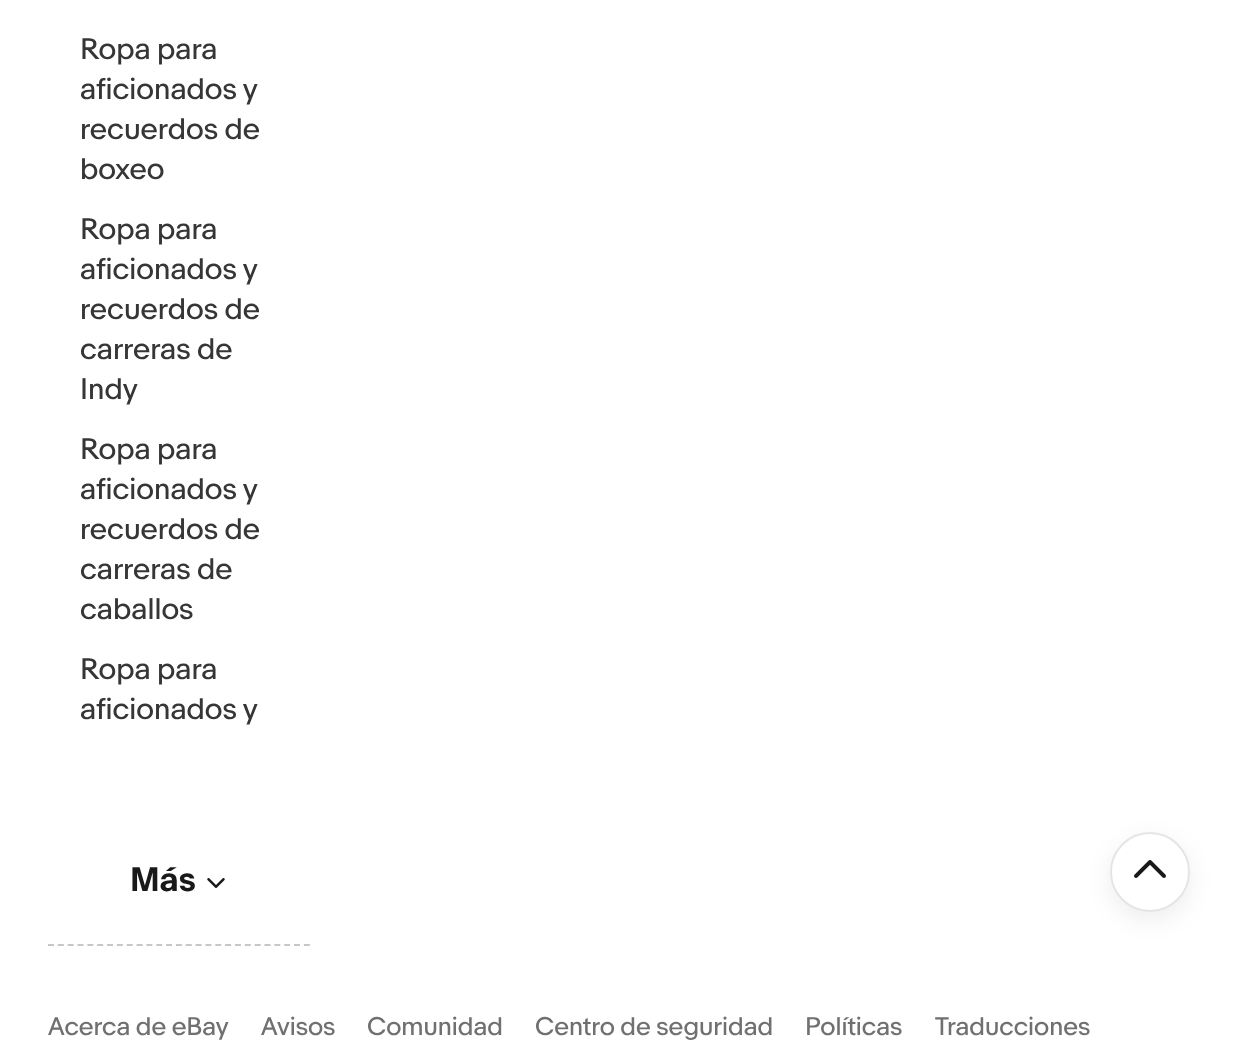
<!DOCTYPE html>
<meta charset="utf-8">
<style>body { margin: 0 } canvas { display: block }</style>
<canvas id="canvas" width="1237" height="1062"></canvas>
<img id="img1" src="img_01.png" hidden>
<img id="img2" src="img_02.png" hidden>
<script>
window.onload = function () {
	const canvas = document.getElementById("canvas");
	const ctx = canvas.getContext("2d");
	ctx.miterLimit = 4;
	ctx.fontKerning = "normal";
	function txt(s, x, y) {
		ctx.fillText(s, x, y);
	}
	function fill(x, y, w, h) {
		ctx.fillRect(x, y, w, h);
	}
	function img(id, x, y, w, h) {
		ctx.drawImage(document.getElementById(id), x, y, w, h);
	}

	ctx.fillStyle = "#FFFFFF";
	fill(0, 0, 1237, 1062);
	ctx.beginPath();
	ctx.moveTo(48, 945);
	ctx.lineTo(310, 945);
	ctx.strokeStyle = "#C7C7C7";
	ctx.lineWidth = 2;
	ctx.setLineDash([6, 3.84]);
	ctx.stroke();
	img("img1", 207, 878, 18, 10);
	ctx.fillStyle = "rgba(0, 0, 0, 0.07)";
	ctx.filter = "blur(12px)";
	ctx.beginPath();
	ctx.roundRect(1110, 840, 80, 80, 40);
	ctx.fill();
	ctx.filter = "none";
	ctx.fillStyle = "#FFFFFF";
	ctx.beginPath();
	ctx.arc(1150, 872, 39, 0, Math.PI * 2);
	ctx.fill();
	ctx.strokeStyle = "#E5E5E5";
	ctx.setLineDash([]);
	ctx.stroke();
	img("img2", 1134, 860, 32, 18);
	ctx.font = "28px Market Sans";
	ctx.fillStyle = "#363636";
	txt("Ropa para", 80, 59);
	txt("aficionados y", 80, 99);
	txt("recuerdos de", 80, 139);
	txt("boxeo", 80, 179);
	txt("Ropa para", 80, 239);
	txt("aficionados y", 80, 279);
	txt("recuerdos de", 80, 319);
	txt("carreras de", 80, 359);
	txt("Indy", 80, 399);
	txt("Ropa para", 80, 459);
	txt("aficionados y", 80, 499);
	txt("recuerdos de", 80, 539);
	txt("carreras de", 80, 579);
	txt("caballos", 80, 619);
	txt("Ropa para", 80, 679);
	txt("aficionados y", 80, 719);
	ctx.font = "bold 32px Market Sans";
	ctx.fillStyle = "#191919";
	txt("Más", 130, 891);
	ctx.font = "24px Market Sans";
	ctx.fillStyle = "#707070";
	txt("Acerca de eBay", 48, 1035);
	txt("Avisos", 261, 1035);
	txt("Comunidad", 367, 1035);
	txt("Centro de seguridad", 535, 1035);
	txt("Políticas", 805, 1035);
	txt("Traducciones", 935, 1035);
};
</script>
